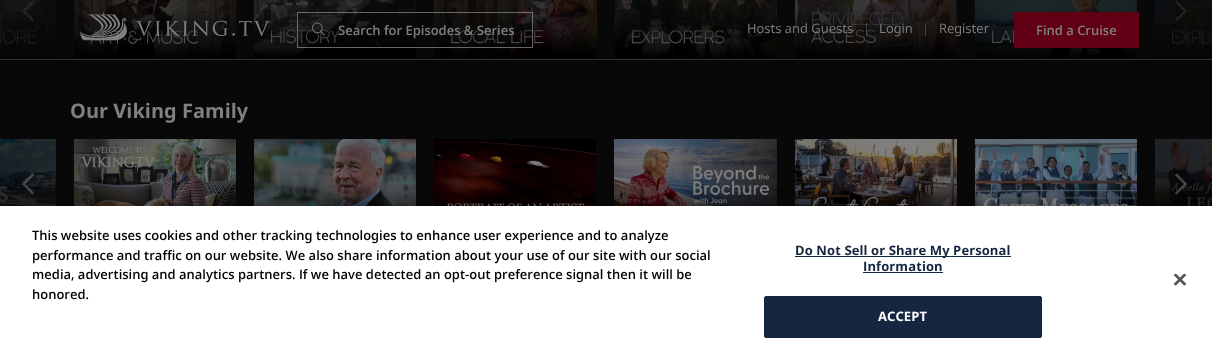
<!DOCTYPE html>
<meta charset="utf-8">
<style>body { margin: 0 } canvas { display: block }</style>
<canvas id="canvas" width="1212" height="358"></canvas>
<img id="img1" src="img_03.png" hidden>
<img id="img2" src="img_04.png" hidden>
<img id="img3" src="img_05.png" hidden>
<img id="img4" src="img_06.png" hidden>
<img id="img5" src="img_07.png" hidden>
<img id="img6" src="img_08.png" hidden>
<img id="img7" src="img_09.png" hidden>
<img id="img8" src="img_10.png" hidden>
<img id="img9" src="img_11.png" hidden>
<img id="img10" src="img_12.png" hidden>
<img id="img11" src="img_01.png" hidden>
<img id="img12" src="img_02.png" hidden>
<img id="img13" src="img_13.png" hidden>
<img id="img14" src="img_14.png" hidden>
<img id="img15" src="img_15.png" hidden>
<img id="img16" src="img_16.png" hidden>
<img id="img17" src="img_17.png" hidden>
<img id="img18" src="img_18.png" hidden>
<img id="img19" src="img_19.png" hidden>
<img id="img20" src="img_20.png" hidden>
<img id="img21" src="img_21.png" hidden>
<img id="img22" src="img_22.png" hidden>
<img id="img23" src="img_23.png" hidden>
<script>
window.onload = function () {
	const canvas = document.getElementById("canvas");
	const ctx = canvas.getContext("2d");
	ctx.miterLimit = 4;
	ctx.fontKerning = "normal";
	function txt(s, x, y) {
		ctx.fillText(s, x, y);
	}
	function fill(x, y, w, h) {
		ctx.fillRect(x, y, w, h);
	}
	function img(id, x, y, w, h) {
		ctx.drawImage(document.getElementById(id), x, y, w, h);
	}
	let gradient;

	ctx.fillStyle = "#080808";
	fill(0, 0, 1212, 358);
	img("img1", 0, 0, 56, 58);
	img("img2", 74, 0, 162, 58);
	img("img3", 254, 0, 162, 58);
	img("img4", 434, 0, 163, 58);
	img("img5", 614, 0, 163, 58);
	img("img6", 794, 0, 163, 58);
	img("img7", 974, 0, 163, 58);
	img("img8", 1155, 0, 57, 58);
	img("img9", 22, 0, 12, 22);
	img("img10", 1175, 0, 12, 22);
	gradient = ctx.createLinearGradient(606, 59, 606, 0);
	gradient.addColorStop(0, "rgba(8, 8, 8, 0)");
	gradient.addColorStop(0.6, "rgba(8, 8, 8, 0.6)");
	ctx.fillStyle = gradient;
	fill(0, 0, 1212, 46);
	ctx.fillStyle = "#2F2F2F";
	fill(0, 59, 1212, 1);
	img("img11", 79, 12, 191, 29);
	ctx.fillStyle = "rgba(8, 8, 8, 0.1)";
	fill(297, 12, 236, 31);
	ctx.strokeStyle = "rgba(128, 128, 128, 0.8)";
	ctx.strokeRect(297.5, 12.5, 235, 35);
	img("img12", 312, 22, 13, 14);
	ctx.fillStyle = "#610015";
	fill(1014, 12, 125, 36);
	img("img13", 0, 139, 56, 67);
	img("img14", 73, 139, 163, 67);
	img("img15", 254, 139, 162, 67);
	img("img16", 434, 139, 162, 67);
	img("img17", 614, 139, 163, 67);
	img("img18", 794, 139, 163, 67);
	img("img19", 974, 139, 163, 67);
	img("img20", 1154, 139, 58, 67);
	img("img21", 22, 173, 12, 22);
	img("img22", 1175, 173, 12, 22);
	ctx.fillStyle = "rgba(0, 0, 0, 0.2)";
	ctx.filter = "blur(9px)";
	ctx.beginPath();
	ctx.rect(0, 206, 1212, 152);
	ctx.fill();
	ctx.filter = "none";
	ctx.fillStyle = "#FFFFFF";
	fill(0, 206, 1212, 152);
	ctx.fillStyle = "#142640";
	fill(795, 256, 216, 1);
	fill(863, 272, 80, 1);
	ctx.beginPath();
	ctx.roundRect(764.5, 296.5, 277, 41, 1.5);
	ctx.fill();
	ctx.strokeStyle = "#142640";
	ctx.stroke();
	img("img23", 1174, 274, 12, 12);
	ctx.font = "600 13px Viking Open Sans";
	ctx.fillStyle = "#808080";
	txt("Search for Episodes & Series", 338, 35);
	ctx.font = "13px Viking Open Sans";
	txt("Hosts and Guests", 747, 33);
	ctx.fillStyle = "#4F4D4C";
	txt("|", 863, 33);
	ctx.fillStyle = "#808080";
	txt("Login", 879, 33);
	ctx.fillStyle = "#4F4D4C";
	txt("|", 922, 33);
	ctx.fillStyle = "#808080";
	txt("Register", 939, 33);
	ctx.font = "600 13px Viking Open Sans";
	txt("Find a Cruise", 1036, 35);
	ctx.font = "bold 20px Viking Open Sans";
	txt("Our Viking Family", 70, 118);
	ctx.font = "600 13px Viking Open Sans";
	ctx.fillStyle = "#000000";
	txt("This website uses cookies and other tracking technologies to enhance user experience and to analyze", 32, 240);
	txt("performance and traffic on our website. We also share information about your use of our site with our social", 32, 260);
	txt("media, advertising and analytics partners. If we have detected an opt-out preference signal then it will be", 32, 279);
	txt("honored.", 32, 299);
	ctx.letterSpacing = "0.1px";
	ctx.font = "bold 13px Viking Open Sans";
	ctx.fillStyle = "#142640";
	txt("Do Not Sell or Share My Personal", 795, 255);
	txt("Information", 863, 271);
	ctx.fillStyle = "#FFFFFF";
	txt("ACCEPT", 878, 321);
};
</script>
